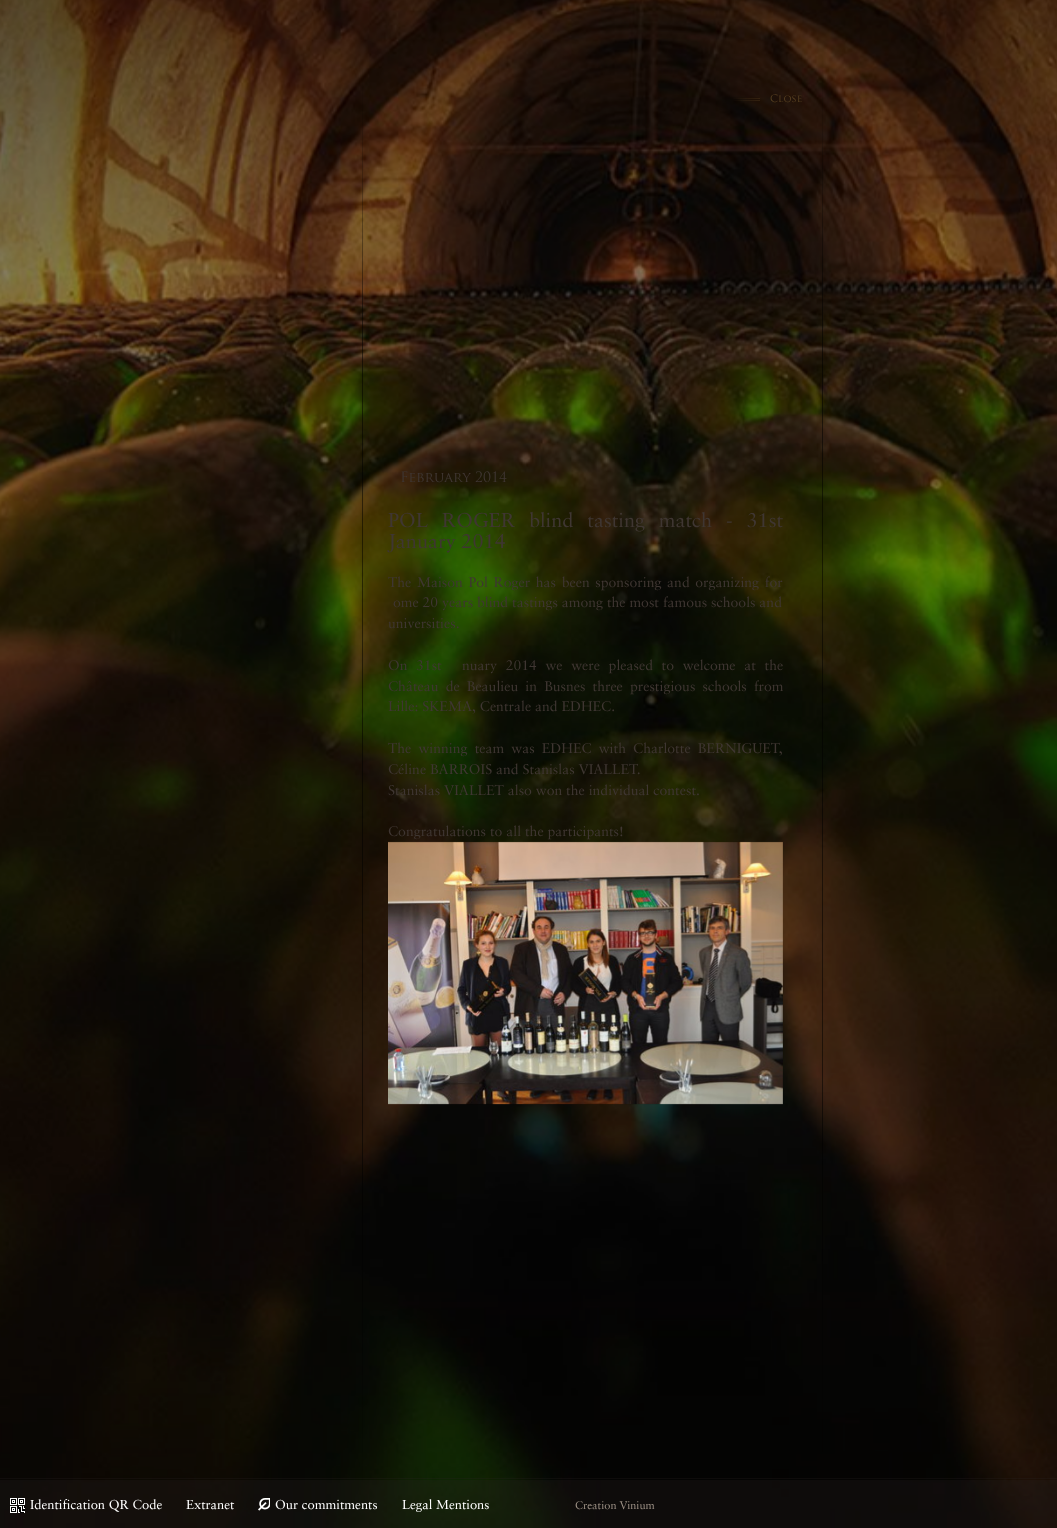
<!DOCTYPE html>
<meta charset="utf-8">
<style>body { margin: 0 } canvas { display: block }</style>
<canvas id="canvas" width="1057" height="1528"></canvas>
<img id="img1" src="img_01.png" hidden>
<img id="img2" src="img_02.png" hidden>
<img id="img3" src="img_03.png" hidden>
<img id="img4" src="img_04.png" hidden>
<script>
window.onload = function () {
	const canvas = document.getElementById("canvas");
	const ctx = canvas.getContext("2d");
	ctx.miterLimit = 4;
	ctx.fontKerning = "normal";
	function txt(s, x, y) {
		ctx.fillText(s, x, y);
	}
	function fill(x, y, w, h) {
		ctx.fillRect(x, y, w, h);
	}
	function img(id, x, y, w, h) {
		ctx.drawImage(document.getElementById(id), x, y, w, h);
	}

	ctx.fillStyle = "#FFFFFF";
	fill(0, 0, 1057, 1528);
	img("img1", 0, 0, 1057, 1528);
	img("img2", 388, 841, 395, 264);
	ctx.fillStyle = "rgba(42, 36, 36, 0.25)";
	fill(0, 1480, 1057, 48);
	fill(0, 1478, 1057, 1);
	img("img3", 10, 1498, 15, 15);
	img("img4", 258, 1498, 12, 13);
	ctx.font = "10px 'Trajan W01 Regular'";
	ctx.fillStyle = "#574021";
	txt("Close", 770, 102);
	ctx.font = "14px 'Trajan W01 Regular'";
	ctx.fillStyle = "#3F3632";
	txt("February 2014", 400, 482);
	ctx.wordSpacing = "8.25px";
	ctx.font = "20px 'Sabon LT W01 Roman'";
	txt("POL ROGER blind tasting match - 31st", 388, 527);
	ctx.wordSpacing = "0px";
	txt("January 2014", 388, 548);
	ctx.wordSpacing = "1.75px";
	ctx.font = "14px 'Sabon LT W01 Roman'";
	txt("The Maison Pol Roger has been sponsoring and organizing for", 388, 587);
	ctx.wordSpacing = "0px";
	txt("ome 20 years blind tastings among the most famous schools and", 393, 607);
	txt("universities.", 388, 628);
	ctx.wordSpacing = "4.75px";
	txt("On 31st", 388, 670);
	txt("nuary 2014 we were pleased to welcome at the", 462, 670);
	ctx.wordSpacing = "3.25px";
	txt("Château de Beaulieu in Busnes three prestigious schools from", 388, 691);
	ctx.wordSpacing = "0px";
	txt("Lille: SKEMA, Centrale and EDHEC.", 388, 711);
	ctx.wordSpacing = "3.25px";
	txt("The winning team was EDHEC with Charlotte BERNIGUET,", 388, 753);
	ctx.wordSpacing = "0px";
	txt("Céline BARROIS and Stanislas VIALLET.", 388, 774);
	txt("Stanislas VIALLET also won the individual contest.", 388, 795);
	txt("Congratulations to all the participants!", 388, 836);
	ctx.font = "13px 'Sabon LT W01 Roman'";
	ctx.fillStyle = "#FFFFFF";
	txt("Identification QR Code", 30, 1509);
	txt("Extranet", 186, 1509);
	txt("Our commitments", 275, 1509);
	txt("Legal Mentions", 402, 1509);
	ctx.font = "11px 'Sabon LT W01 Roman'";
	ctx.fillStyle = "#9E9286";
	txt("Creation Vinium", 575, 1509);
};
</script>
